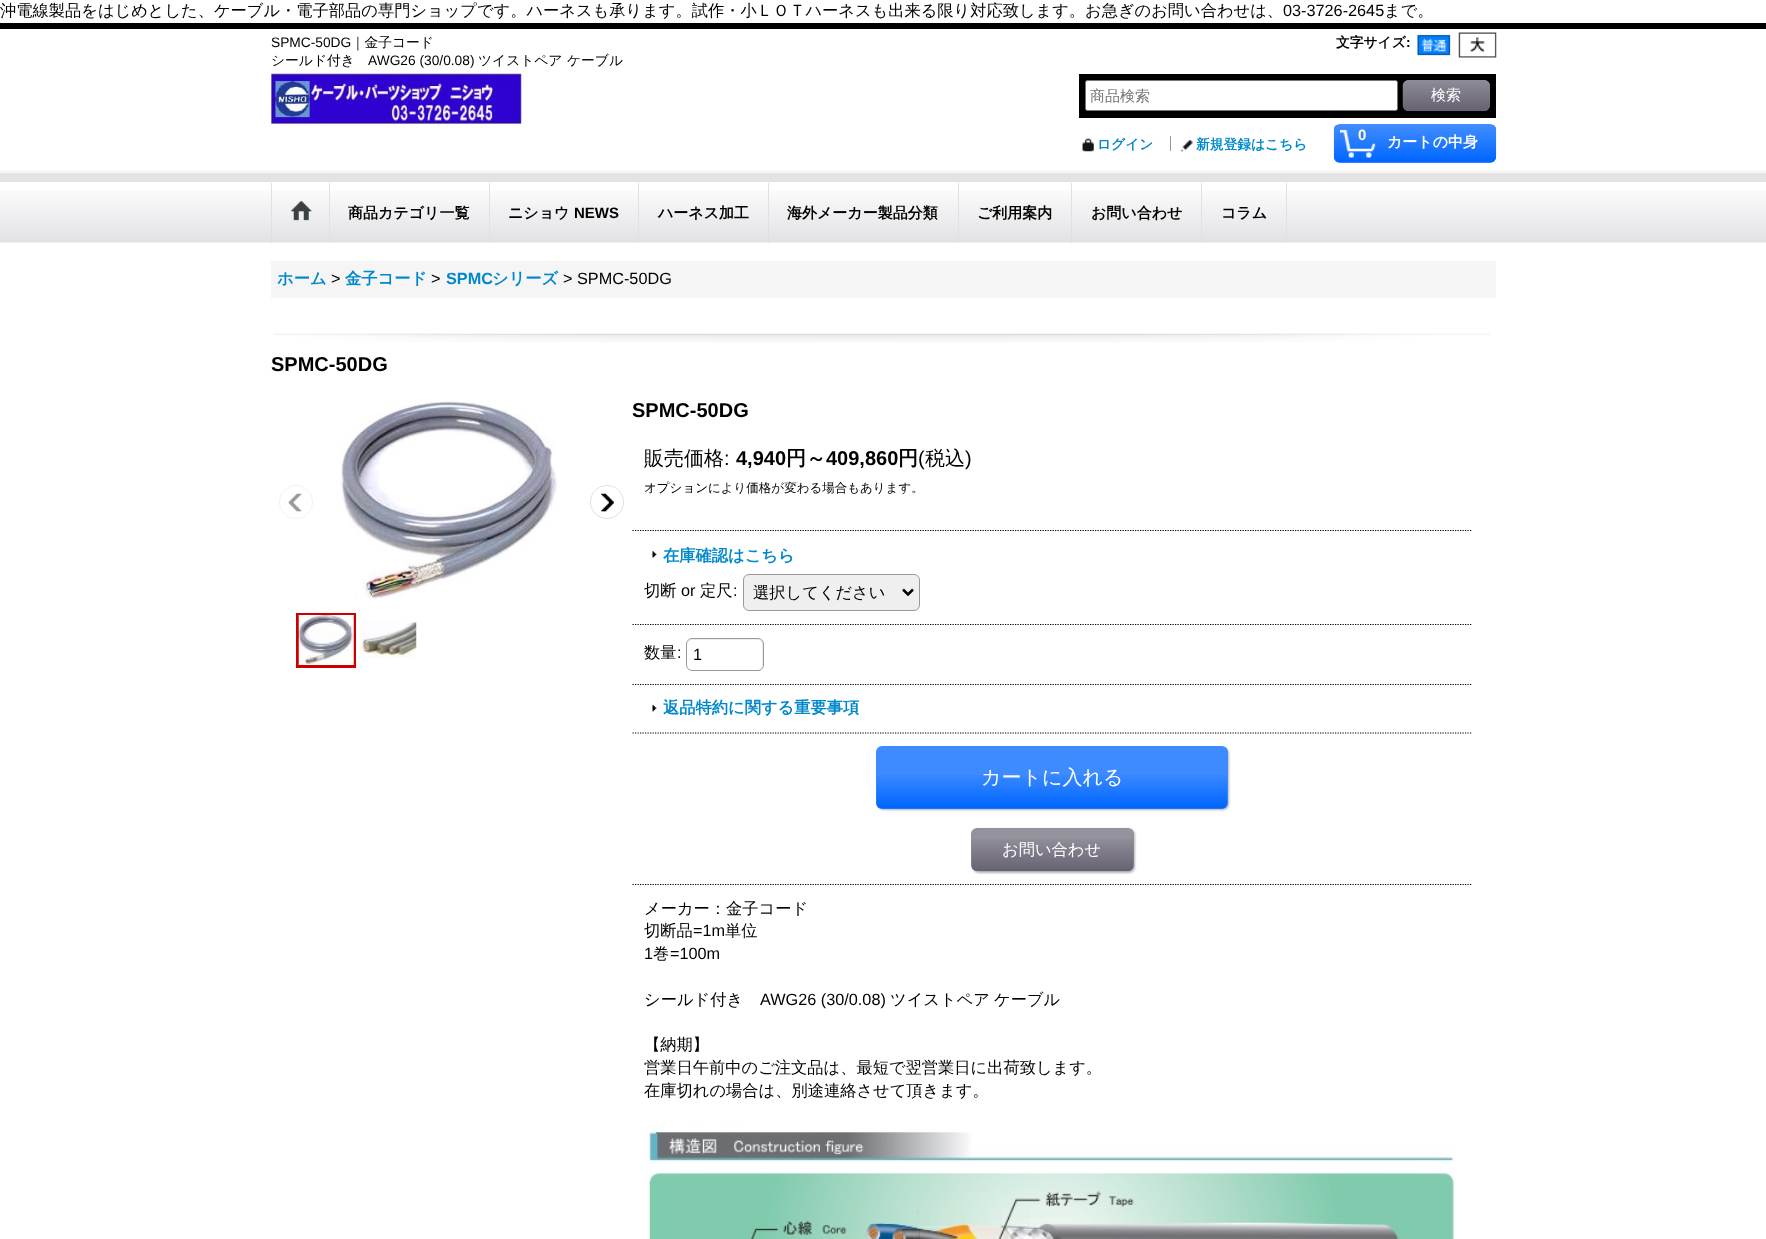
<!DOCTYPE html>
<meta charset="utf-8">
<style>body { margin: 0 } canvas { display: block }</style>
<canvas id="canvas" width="1766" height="1239"></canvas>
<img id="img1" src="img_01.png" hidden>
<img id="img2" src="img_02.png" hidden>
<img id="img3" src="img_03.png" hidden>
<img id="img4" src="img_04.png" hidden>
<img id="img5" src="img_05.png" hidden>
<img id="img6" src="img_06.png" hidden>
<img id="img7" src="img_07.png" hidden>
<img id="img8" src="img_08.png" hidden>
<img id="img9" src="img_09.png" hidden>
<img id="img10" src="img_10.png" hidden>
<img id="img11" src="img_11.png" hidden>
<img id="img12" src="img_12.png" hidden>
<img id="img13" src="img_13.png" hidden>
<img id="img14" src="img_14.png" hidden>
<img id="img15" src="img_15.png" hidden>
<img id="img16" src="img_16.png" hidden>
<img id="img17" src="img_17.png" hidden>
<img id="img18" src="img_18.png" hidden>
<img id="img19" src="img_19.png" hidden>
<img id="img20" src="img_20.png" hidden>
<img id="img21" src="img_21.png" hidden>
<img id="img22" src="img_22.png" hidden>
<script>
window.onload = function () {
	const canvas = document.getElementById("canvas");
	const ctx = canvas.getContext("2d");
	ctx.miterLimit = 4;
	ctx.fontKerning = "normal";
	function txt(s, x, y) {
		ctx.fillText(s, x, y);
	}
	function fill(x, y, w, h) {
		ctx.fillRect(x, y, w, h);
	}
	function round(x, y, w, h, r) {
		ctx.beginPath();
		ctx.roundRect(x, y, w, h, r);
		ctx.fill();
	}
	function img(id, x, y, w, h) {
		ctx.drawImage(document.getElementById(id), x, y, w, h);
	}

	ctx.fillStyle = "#FFFFFF";
	fill(0, 0, 1766, 1239);
	ctx.fillStyle = "#000000";
	fill(0, 23, 1766, 6);
	img("img1", 0, 170, 1766, 11);
	img("img2", 1417, 34, 34, 22);
	img("img3", 1458, 32, 39, 26);
	img("img4", 271, 73, 251, 51);
	fill(1079, 74, 417, 44);
	ctx.fillStyle = "#FFFFFF";
	ctx.beginPath();
	ctx.roundRect(1085.5, 80.5, 312, 30, 2);
	ctx.fill();
	ctx.strokeStyle = "#767676";
	ctx.stroke();
	ctx.fillStyle = "#94929D";
	round(1403, 80, 87, 31, 6);
	img("img5", 1402, 80, 88, 32);
	img("img6", 1082, 138, 12, 14);
	ctx.fillStyle = "#999999";
	fill(1170, 136, 1, 15);
	img("img7", 1181, 139, 12, 13);
	ctx.fillStyle = "#428DFF";
	round(1334, 124, 162, 39, 6);
	img("img8", 1333, 125, 164, 38);
	img("img9", 1340, 129, 36, 29);
	img("img10", 0, 190, 1766, 53);
	ctx.fillStyle = "#E0DFE3";
	fill(0, 181, 1766, 1);
	fill(329, 183, 1, 60);
	fill(271, 183, 1, 60);
	img("img11", 291, 201, 21, 20);
	fill(489, 183, 1, 60);
	fill(638, 183, 1, 60);
	fill(768, 183, 1, 60);
	fill(958, 183, 1, 60);
	fill(1071, 183, 1, 60);
	fill(1201, 183, 1, 60);
	fill(1286, 183, 1, 60);
	ctx.fillStyle = "#F5F5F5";
	fill(271, 261, 1225, 37);
	img("img12", 274, 333, 1217, 10);
	img("img13", 340, 400, 218, 199);
	img("img14", 288, 493, 14, 19);
	ctx.beginPath();
	ctx.arc(296, 502, 16.5, 0, Math.PI * 2);
	ctx.strokeStyle = "#F3F2F4";
	ctx.stroke();
	img("img15", 601, 493, 13, 19);
	ctx.beginPath();
	ctx.arc(607, 502, 16.5, 0, Math.PI * 2);
	ctx.strokeStyle = "#E0DFE3";
	ctx.stroke();
	ctx.strokeStyle = "#CC0000";
	ctx.lineWidth = 3;
	ctx.strokeRect(297.5, 614.5, 57, 52);
	img("img16", 298, 615, 56, 50);
	img("img17", 361, 622, 56, 36);
	ctx.beginPath();
	ctx.moveTo(632.5, 530.5);
	ctx.lineTo(1472.5, 530.5);
	ctx.strokeStyle = "#000000";
	ctx.lineWidth = 1.2;
	ctx.setLineDash([1.25, 1.25]);
	ctx.stroke();
	ctx.beginPath();
	ctx.moveTo(632.5, 624.5);
	ctx.lineTo(1472.5, 624.5);
	ctx.stroke();
	img("img18", 652, 551, 5, 7);
	ctx.fillStyle = "#EFEFEF";
	ctx.beginPath();
	ctx.roundRect(743.5, 574.5, 176, 36, 5.5);
	ctx.fill();
	ctx.strokeStyle = "#999999";
	ctx.lineWidth = 1;
	ctx.setLineDash([]);
	ctx.stroke();
	ctx.beginPath();
	ctx.moveTo(903, 589.5);
	ctx.lineTo(908, 594.5);
	ctx.lineTo(913, 589.5);
	ctx.strokeStyle = "#000000";
	ctx.lineWidth = 2.5;
	ctx.stroke();
	ctx.beginPath();
	ctx.moveTo(632.5, 684.5);
	ctx.lineTo(1472.5, 684.5);
	ctx.lineWidth = 1.2;
	ctx.setLineDash([1.25, 1.25]);
	ctx.stroke();
	ctx.fillStyle = "#ECECEC";
	ctx.beginPath();
	ctx.moveTo(692, 640);
	ctx.lineTo(758, 640);
	ctx.bezierCurveTo(760, 640, 762, 642, 762, 645);
	ctx.lineTo(762, 666);
	ctx.lineTo(761, 669);
	ctx.bezierCurveTo(762, 668, 763, 666, 763, 665);
	ctx.lineTo(763, 644);
	ctx.bezierCurveTo(763, 641, 761, 639, 758, 639);
	ctx.lineTo(693, 639);
	ctx.bezierCurveTo(690, 639, 688, 641, 688, 644);
	ctx.lineTo(688, 645);
	ctx.bezierCurveTo(688, 642, 690, 640, 692, 640);
	ctx.closePath();
	ctx.fill();
	ctx.beginPath();
	ctx.roundRect(686.5, 638.5, 77, 32, 5.5);
	ctx.strokeStyle = "#999999";
	ctx.lineWidth = 1;
	ctx.setLineDash([]);
	ctx.stroke();
	ctx.beginPath();
	ctx.moveTo(632.5, 733);
	ctx.lineTo(1472.5, 733);
	ctx.strokeStyle = "#000000";
	ctx.lineWidth = 1.2;
	ctx.setLineDash([1.25, 1.25]);
	ctx.stroke();
	img("img19", 652, 704, 5, 8);
	ctx.beginPath();
	ctx.moveTo(632.5, 884.5);
	ctx.lineTo(1472.5, 884.5);
	ctx.stroke();
	ctx.fillStyle = "rgba(0, 0, 0, 0.3)";
	ctx.filter = "blur(1px)";
	ctx.beginPath();
	ctx.roundRect(878, 748, 351, 62, 6);
	ctx.fill();
	ctx.filter = "none";
	ctx.fillStyle = "#3E8BFF";
	round(876, 746, 352, 63, 6);
	img("img20", 876, 775, 352, 34);
	ctx.fillStyle = "rgba(0, 0, 0, 0.3)";
	ctx.filter = "blur(1px)";
	ctx.beginPath();
	ctx.roundRect(973, 829, 162, 44, 6);
	ctx.fill();
	ctx.filter = "none";
	ctx.fillStyle = "#94929D";
	round(971, 828, 163, 43, 6);
	img("img21", 971, 839, 163, 33);
	img("img22", 645, 1125, 811, 114);
	ctx.font = "500 16.25px WenQuanYi Zen Hei";
	ctx.fillStyle = "#000000";
	txt("沖電線製品をはじめとした、ケーブル・電子部品の専門ショップです。ハーネスも承ります。試作・小ＬＯＴハーネスも出来る限り対応致します。お急ぎのお問い合わせは、", 0, 16);
	ctx.font = "16.25px Liberation Sans";
	txt("03-3726-2645", 1283, 16);
	ctx.font = "500 16.25px WenQuanYi Zen Hei";
	txt("まで。", 1384, 16);
	ctx.font = "13.75px Liberation Sans";
	txt("SPMC-50DG", 271, 47);
	ctx.font = "500 13.75px WenQuanYi Zen Hei";
	txt("｜金子コード", 351, 47);
	txt("シールド付き", 271, 65);
	ctx.font = "13.75px Liberation Sans";
	txt("AWG26 (30/0.08)", 368, 65);
	ctx.font = "500 13.75px WenQuanYi Zen Hei";
	txt("ツイストペア", 478, 65);
	txt("ケーブル", 567, 65);
	ctx.font = "bold 13.75px WenQuanYi Zen Hei";
	txt("文字サイズ", 1336, 47);
	ctx.font = "bold 13.75px Liberation Sans";
	txt(":", 1406, 47);
	ctx.font = "500 15px WenQuanYi Zen Hei";
	ctx.fillStyle = "#757575";
	txt("商品検索", 1090, 101);
	ctx.fillStyle = "#FFFFFF";
	txt("検索", 1431, 100);
	ctx.font = "bold 13.75px WenQuanYi Zen Hei";
	ctx.fillStyle = "#0088CC";
	txt("ログイン", 1097, 149);
	txt("新規登録はこちら", 1196, 149);
	ctx.font = "bold 15px Liberation Sans";
	ctx.fillStyle = "#FFFFCC";
	txt("0", 1358, 140);
	ctx.font = "bold 15px WenQuanYi Zen Hei";
	ctx.fillStyle = "#FFFFFF";
	txt("カートの中身", 1387, 147);
	ctx.fillStyle = "#000000";
	txt("商品カテゴリ一覧", 348, 218);
	txt("ニショウ", 508, 218);
	ctx.font = "bold 15px Liberation Sans";
	txt("NEWS", 574, 218);
	ctx.font = "bold 15px WenQuanYi Zen Hei";
	txt("ハーネス加工", 658, 218);
	txt("海外メーカー製品分類", 787, 218);
	txt("ご利用案内", 977, 218);
	txt("お問い合わせ", 1091, 218);
	txt("コラム", 1221, 218);
	ctx.font = "bold 16.25px WenQuanYi Zen Hei";
	ctx.fillStyle = "#0088CC";
	txt("ホーム", 277, 284);
	ctx.font = "16.25px Liberation Sans";
	ctx.fillStyle = "#000000";
	txt(">", 331, 284);
	ctx.font = "bold 16.25px WenQuanYi Zen Hei";
	ctx.fillStyle = "#0088CC";
	txt("金子コード", 345, 284);
	ctx.font = "16.25px Liberation Sans";
	ctx.fillStyle = "#000000";
	txt(">", 431, 284);
	ctx.font = "bold 16.25px Liberation Sans";
	ctx.fillStyle = "#0088CC";
	txt("SPMC", 446, 284);
	ctx.font = "bold 16.25px WenQuanYi Zen Hei";
	txt("シリーズ", 492, 284);
	ctx.font = "16.25px Liberation Sans";
	ctx.fillStyle = "#000000";
	txt("> SPMC-50DG", 563, 284);
	ctx.font = "bold 20px Liberation Sans";
	txt("SPMC-50DG", 271, 371);
	txt("SPMC-50DG", 632, 417);
	ctx.font = "500 20px WenQuanYi Zen Hei";
	txt("販売価格", 644, 465);
	ctx.font = "20px Liberation Sans";
	txt(":", 724, 465);
	ctx.font = "bold 20px Liberation Sans";
	txt("4,940", 736, 465);
	ctx.font = "bold 20px WenQuanYi Zen Hei";
	txt("円～", 786, 465);
	ctx.font = "bold 20px Liberation Sans";
	txt("409,860", 826, 465);
	ctx.font = "bold 20px WenQuanYi Zen Hei";
	txt("円", 898, 465);
	ctx.font = "20px Liberation Sans";
	txt("(", 918, 465);
	ctx.font = "500 20px WenQuanYi Zen Hei";
	txt("税込", 925, 465);
	ctx.font = "20px Liberation Sans";
	txt(")", 965, 465);
	ctx.font = "500 12.5px WenQuanYi Zen Hei";
	txt("オプションにより価格が変わる場合もあります。", 644, 492);
	ctx.font = "bold 16.25px WenQuanYi Zen Hei";
	ctx.fillStyle = "#0088CC";
	txt("在庫確認はこちら", 663, 561);
	ctx.font = "500 16.25px WenQuanYi Zen Hei";
	ctx.fillStyle = "#000000";
	txt("切断", 644, 596);
	ctx.font = "16.25px Liberation Sans";
	txt("or", 681, 596);
	ctx.font = "500 16.25px WenQuanYi Zen Hei";
	txt("定尺", 700, 596);
	ctx.font = "16.25px Liberation Sans";
	txt(":", 733, 596);
	ctx.font = "500 16.25px WenQuanYi Zen Hei";
	txt("選択してください", 753, 598);
	txt("数量", 644, 658);
	ctx.font = "16.25px Liberation Sans";
	txt(":", 677, 658);
	txt("1", 693, 660);
	ctx.font = "bold 16.25px WenQuanYi Zen Hei";
	ctx.fillStyle = "#0088CC";
	txt("返品特約に関する重要事項", 663, 713);
	ctx.font = "500 20px WenQuanYi Zen Hei";
	ctx.fillStyle = "#FFFFFF";
	txt("カートに入れる", 981, 784);
	ctx.font = "500 16.25px WenQuanYi Zen Hei";
	txt("お問い合わせ", 1002, 855);
	ctx.fillStyle = "#000000";
	txt("メーカー：金子コード", 644, 914);
	txt("切断品", 644, 936);
	ctx.font = "16.25px Liberation Sans";
	txt("=1m", 693, 936);
	ctx.font = "500 16.25px WenQuanYi Zen Hei";
	txt("単位", 725, 936);
	ctx.font = "16.25px Liberation Sans";
	txt("1", 644, 959);
	ctx.font = "500 16.25px WenQuanYi Zen Hei";
	txt("巻", 653, 959);
	ctx.font = "16.25px Liberation Sans";
	txt("=100m", 670, 959);
	ctx.font = "500 16.25px WenQuanYi Zen Hei";
	txt("シールド付き", 644, 1005);
	ctx.font = "16.25px Liberation Sans";
	txt("AWG26 (30/0.08)", 760, 1005);
	ctx.font = "500 16.25px WenQuanYi Zen Hei";
	txt("ツイストペア", 890, 1005);
	txt("ケーブル", 994, 1005);
	txt("【納期】", 644, 1050);
	txt("営業日午前中のご注文品は、最短で翌営業日に出荷致します。", 644, 1073);
	txt("在庫切れの場合は、別途連絡させて頂きます。", 644, 1096);
};
</script>
